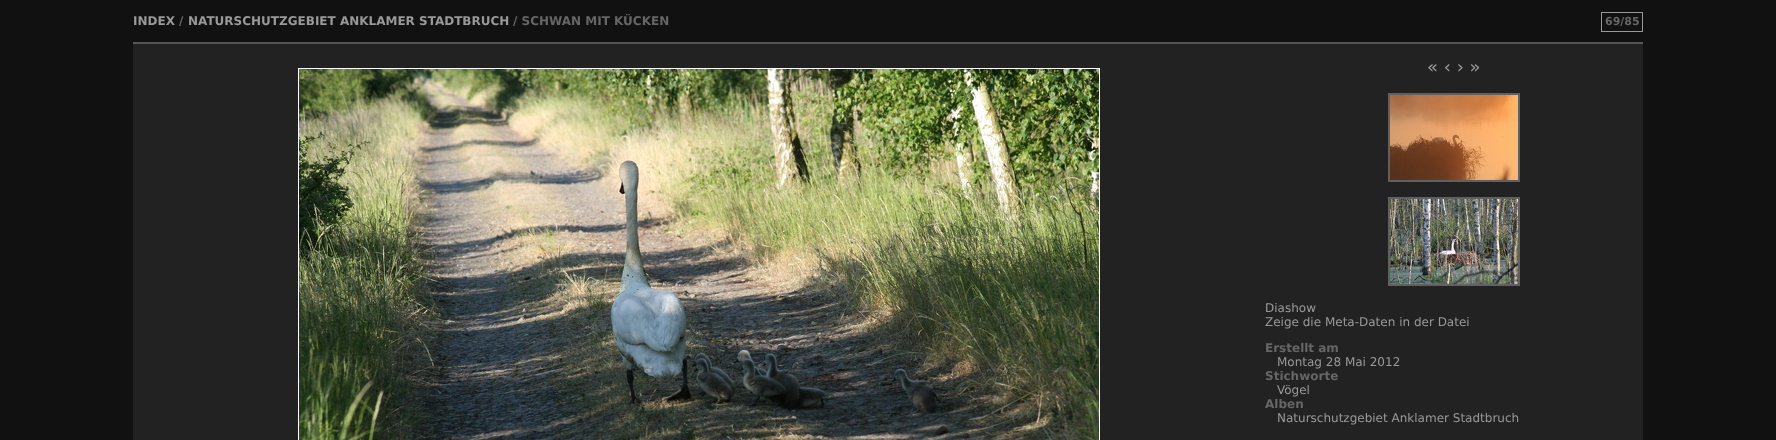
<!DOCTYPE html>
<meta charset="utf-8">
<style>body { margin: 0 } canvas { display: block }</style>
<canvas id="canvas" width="1776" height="440"></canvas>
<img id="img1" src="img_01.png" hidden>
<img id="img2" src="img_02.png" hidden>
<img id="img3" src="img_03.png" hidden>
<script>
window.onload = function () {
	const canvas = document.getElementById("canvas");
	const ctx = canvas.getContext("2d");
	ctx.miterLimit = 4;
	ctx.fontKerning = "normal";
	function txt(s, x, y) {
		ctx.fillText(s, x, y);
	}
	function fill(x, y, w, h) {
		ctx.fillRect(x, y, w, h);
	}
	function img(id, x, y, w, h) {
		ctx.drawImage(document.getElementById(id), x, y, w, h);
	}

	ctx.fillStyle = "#111111";
	fill(0, 0, 1776, 440);
	ctx.strokeStyle = "#999999";
	ctx.strokeRect(1601.5, 12.5, 41, 19);
	ctx.fillStyle = "#222222";
	fill(133, 44, 1510, 396);
	ctx.fillStyle = "#555555";
	fill(133, 42, 1510, 2);
	ctx.strokeStyle = "#FFFFFF";
	ctx.strokeRect(298.5, 68.5, 801, 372);
	img("img1", 299, 69, 800, 371);
	ctx.strokeStyle = "#606060";
	ctx.lineWidth = 2;
	ctx.strokeRect(1389, 94, 130, 87);
	img("img2", 1390, 95, 128, 85);
	ctx.strokeRect(1389, 198, 130, 87);
	img("img3", 1390, 199, 128, 85);
	ctx.font = "bold 12px DejaVu Sans";
	ctx.fillStyle = "#999999";
	txt("INDEX", 133, 25);
	ctx.fillStyle = "#666666";
	txt("/", 179, 25);
	ctx.fillStyle = "#999999";
	txt("NATURSCHUTZGEBIET ANKLAMER STADTBRUCH", 188, 25);
	ctx.fillStyle = "#666666";
	txt("/ SCHWAN MIT KÜCKEN", 513, 25);
	ctx.font = "bold 11px DejaVu Sans";
	txt("69/85", 1605, 25);
	ctx.font = "18px DejaVu Sans";
	ctx.fillStyle = "#999999";
	txt("« ‹ › »", 1427, 73);
	ctx.font = "12px DejaVu Sans";
	txt("Diashow", 1265, 312);
	txt("Zeige die Meta-Daten in der Datei", 1265, 326);
	ctx.font = "bold 12px DejaVu Sans";
	ctx.fillStyle = "#666666";
	txt("Erstellt am", 1265, 352);
	ctx.font = "12px DejaVu Sans";
	ctx.fillStyle = "#999999";
	txt("Montag 28 Mai 2012", 1277, 366);
	ctx.font = "bold 12px DejaVu Sans";
	ctx.fillStyle = "#666666";
	txt("Stichworte", 1265, 380);
	ctx.font = "12px DejaVu Sans";
	ctx.fillStyle = "#999999";
	txt("Vögel", 1277, 394);
	ctx.font = "bold 12px DejaVu Sans";
	ctx.fillStyle = "#666666";
	txt("Alben", 1265, 408);
	ctx.font = "12px DejaVu Sans";
	ctx.fillStyle = "#999999";
	txt("Naturschutzgebiet Anklamer Stadtbruch", 1277, 422);
};
</script>
